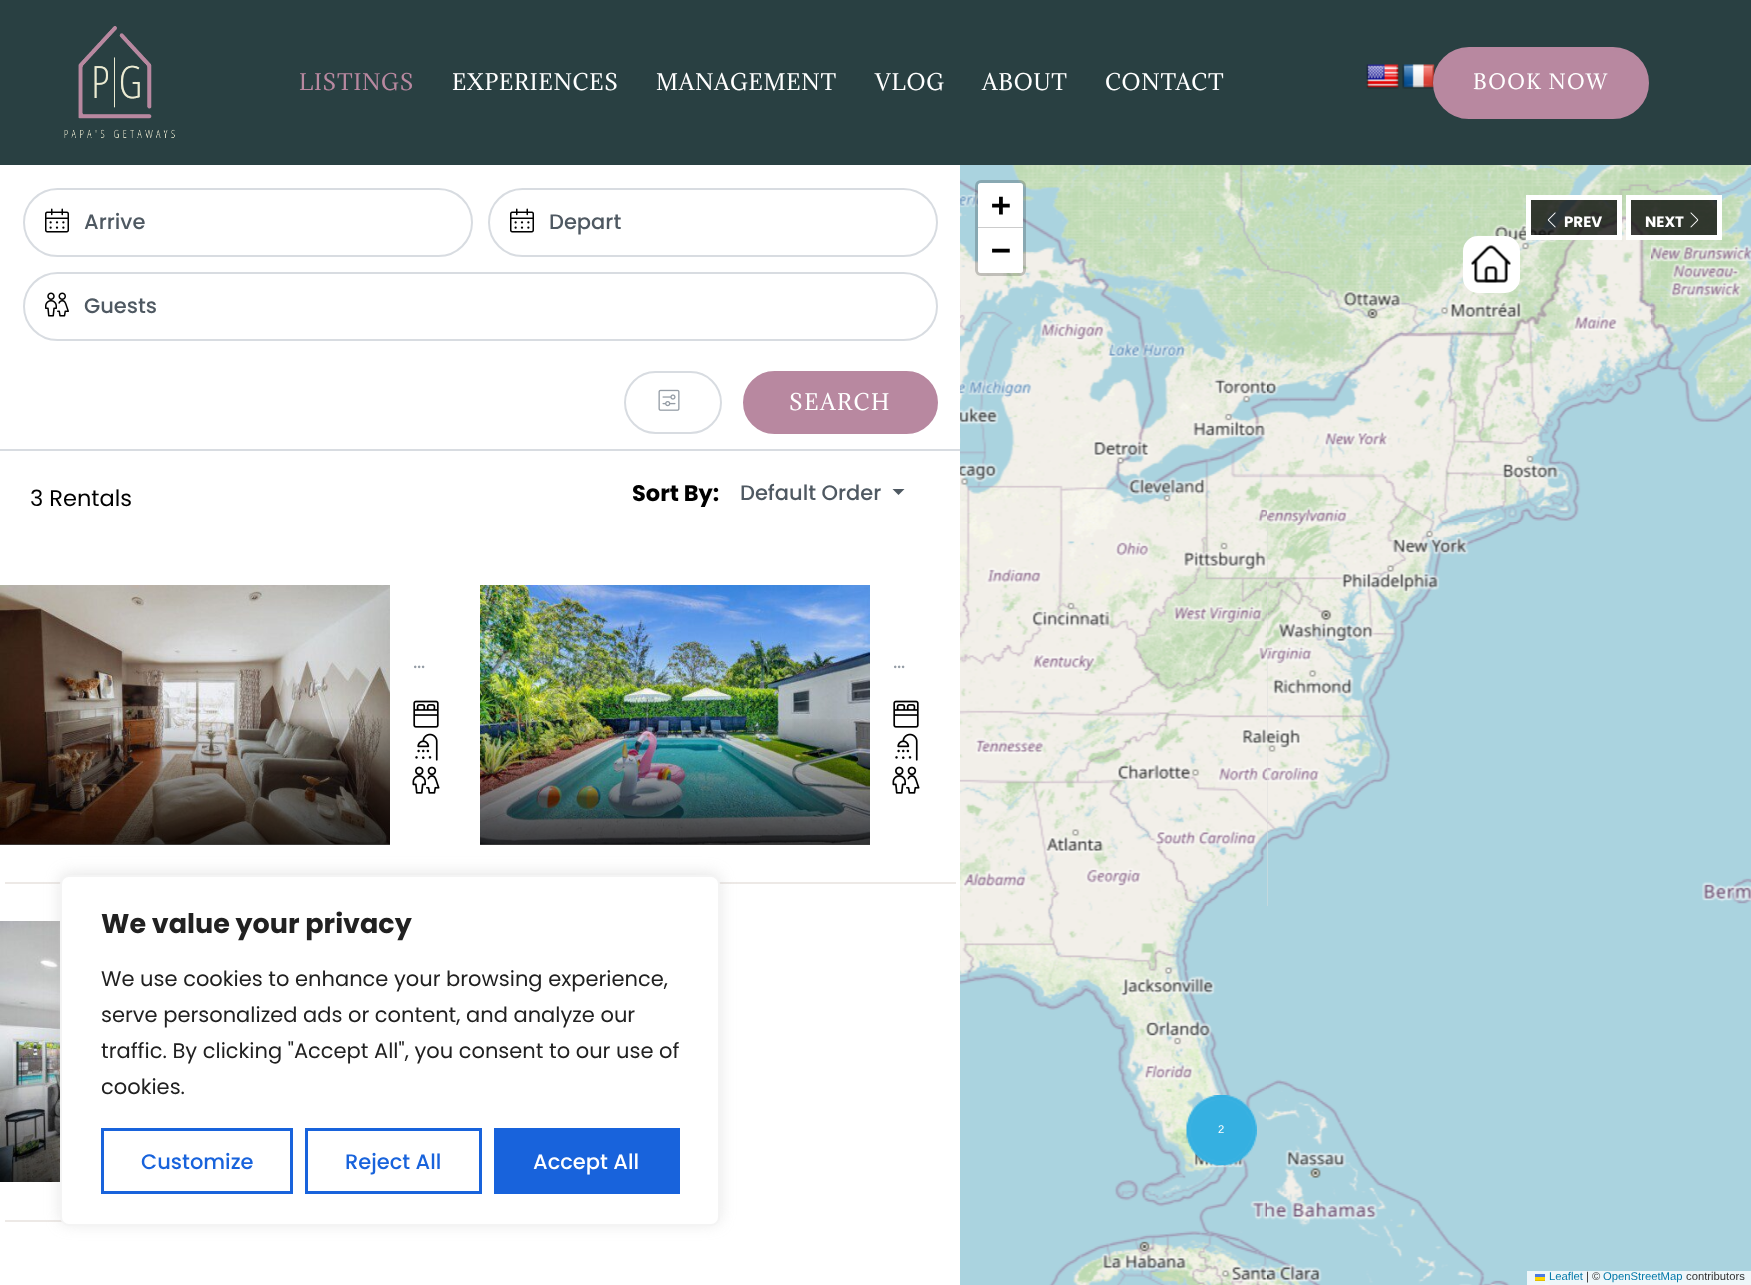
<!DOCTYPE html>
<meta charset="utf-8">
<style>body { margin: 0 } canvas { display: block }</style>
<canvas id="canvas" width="1751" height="1285"></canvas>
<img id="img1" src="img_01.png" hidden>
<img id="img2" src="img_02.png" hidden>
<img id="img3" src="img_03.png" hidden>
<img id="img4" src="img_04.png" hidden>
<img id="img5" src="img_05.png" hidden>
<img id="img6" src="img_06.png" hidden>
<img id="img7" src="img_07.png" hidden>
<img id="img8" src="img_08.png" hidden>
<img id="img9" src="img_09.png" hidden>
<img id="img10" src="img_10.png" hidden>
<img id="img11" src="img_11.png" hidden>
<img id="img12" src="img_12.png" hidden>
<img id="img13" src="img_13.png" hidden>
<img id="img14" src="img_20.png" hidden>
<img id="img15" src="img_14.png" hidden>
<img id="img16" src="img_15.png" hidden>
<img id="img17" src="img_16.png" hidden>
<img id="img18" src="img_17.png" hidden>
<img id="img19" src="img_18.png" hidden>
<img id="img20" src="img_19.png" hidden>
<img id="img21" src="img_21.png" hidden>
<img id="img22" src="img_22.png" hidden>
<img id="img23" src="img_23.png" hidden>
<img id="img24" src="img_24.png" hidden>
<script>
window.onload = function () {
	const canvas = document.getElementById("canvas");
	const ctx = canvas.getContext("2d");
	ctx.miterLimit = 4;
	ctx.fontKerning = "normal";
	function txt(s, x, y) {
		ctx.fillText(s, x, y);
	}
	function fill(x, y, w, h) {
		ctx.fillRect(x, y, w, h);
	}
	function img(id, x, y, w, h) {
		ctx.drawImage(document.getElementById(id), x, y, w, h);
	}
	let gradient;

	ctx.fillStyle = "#FFFFFF";
	fill(0, 0, 1751, 1285);
	ctx.fillStyle = "#294042";
	fill(0, 0, 1751, 165);
	img("img1", 64, 26, 111, 113);
	img("img2", 1366, 64, 33, 25);
	img("img3", 1402, 64, 33, 25);
	ctx.fillStyle = "#B888A0";
	ctx.beginPath();
	ctx.roundRect(1434.5, 48.5, 213, 69, 34.5);
	ctx.fill();
	ctx.strokeStyle = "#B888A0";
	ctx.lineWidth = 3;
	ctx.stroke();
	ctx.fillStyle = "#D8DCE1";
	fill(0, 449, 960, 2);
	ctx.beginPath();
	ctx.roundRect(24, 189, 448, 67, 33.5);
	ctx.strokeStyle = "#D8DCE1";
	ctx.lineWidth = 2;
	ctx.stroke();
	img("img4", 45, 208, 24, 25);
	ctx.beginPath();
	ctx.roundRect(489, 189, 448, 67, 33.5);
	ctx.stroke();
	img("img4", 510, 208, 24, 25);
	ctx.beginPath();
	ctx.roundRect(24, 273, 913, 67, 33.5);
	ctx.stroke();
	img("img5", 45, 292, 24, 25);
	ctx.beginPath();
	ctx.roundRect(625, 372, 96, 61, 30.5);
	ctx.stroke();
	img("img6", 658, 389, 22, 22);
	ctx.fillStyle = "#B888A0";
	ctx.beginPath();
	ctx.roundRect(744, 372, 193, 61, 30.5);
	ctx.fill();
	ctx.strokeStyle = "#B888A0";
	ctx.stroke();
	ctx.fillStyle = "#4F5962";
	ctx.beginPath();
	ctx.moveTo(892.5, 489);
	ctx.lineTo(904.5, 489);
	ctx.lineTo(898.5, 495);
	ctx.closePath();
	ctx.fill();
	ctx.fillStyle = "#EDE9E6";
	fill(5, 882, 56, 2);
	img("img7", 0, 585, 390, 260);
	gradient = ctx.createLinearGradient(195, 585, 195, 845);
	gradient.addColorStop(0, "rgba(0, 0, 0, 0)");
	gradient.addColorStop(0.5, "rgba(0, 0, 0, 0)");
	gradient.addColorStop(1, "rgba(0, 0, 0, 0.75)");
	ctx.fillStyle = gradient;
	fill(0, 719, 390, 126);
	img("img8", 413, 700, 26, 28);
	img("img9", 415, 733, 23, 28);
	img("img10", 412, 766, 28, 28);
	ctx.fillStyle = "#EDE9E6";
	fill(719, 882, 237, 2);
	img("img11", 480, 585, 390, 260);
	gradient = ctx.createLinearGradient(675, 585, 675, 845);
	gradient.addColorStop(0, "rgba(0, 0, 0, 0)");
	gradient.addColorStop(0.5, "rgba(0, 0, 0, 0)");
	gradient.addColorStop(1, "rgba(0, 0, 0, 0.75)");
	ctx.fillStyle = gradient;
	fill(480, 719, 390, 126);
	img("img8", 893, 700, 26, 28);
	img("img9", 895, 733, 23, 28);
	img("img10", 892, 766, 28, 28);
	ctx.fillStyle = "#EDE9E6";
	fill(5, 1220, 57, 2);
	img("img12", 0, 921, 60, 261);
	ctx.fillStyle = "#DDDDDD";
	fill(1267, 522, 1, 384);
	img("img13", 960, 165, 307, 357);
	ctx.beginPath();
	ctx.roundRect(976.5, 181.5, 48, 93, 4.5);
	ctx.strokeStyle = "rgba(0, 0, 0, 0.2)";
	ctx.lineWidth = 3;
	ctx.stroke();
	ctx.fillStyle = "#FFFFFF";
	ctx.beginPath();
	ctx.roundRect(978, 183, 45, 45, [3, 3, 0, 0]);
	ctx.fill();
	ctx.fillStyle = "#CCCCCC";
	fill(978, 227, 45, 1);
	ctx.fillStyle = "#FFFFFF";
	ctx.beginPath();
	ctx.roundRect(978, 228, 45, 45, [0, 0, 3, 3]);
	ctx.fill();
	img("img14", 1267, 906, 384, 379);
	ctx.fillStyle = "#AAD3DF";
	fill(1651, 906, 100, 379);
	ctx.fillStyle = "rgba(255, 255, 255, 0.8)";
	fill(1527, 1271, 224, 14);
	ctx.fillStyle = "#4C7BE1";
	fill(1535, 1274, 10, 3);
	ctx.fillStyle = "#FFD500";
	fill(1535, 1277, 10, 3);
	ctx.fillStyle = "#E0BC00";
	fill(1535, 1280, 10, 1);
	img("img15", 1267, 165, 384, 357);
	img("img16", 1651, 165, 100, 357);
	img("img17", 960, 522, 307, 384);
	img("img18", 1267, 522, 384, 384);
	img("img19", 1651, 522, 100, 384);
	img("img20", 960, 906, 307, 379);
	ctx.fillStyle = "#FFFFFF";
	ctx.beginPath();
	ctx.roundRect(1467.5, 240.5, 48, 48, 10.5);
	ctx.fill();
	ctx.strokeStyle = "#FFFFFF";
	ctx.lineWidth = 9;
	ctx.stroke();
	img("img21", 1471, 245, 40, 38);
	img("img22", 1186, 1095, 71, 71);
	ctx.fillStyle = "rgba(0, 0, 0, 0.75)";
	ctx.beginPath();
	ctx.rect(1528.5, 197.5, 91, 40);
	ctx.fill();
	ctx.lineWidth = 5;
	ctx.stroke();
	img("img23", 1547, 212, 9, 16);
	ctx.beginPath();
	ctx.rect(1628.5, 197.5, 91, 40);
	ctx.fill();
	ctx.stroke();
	img("img24", 1690, 212, 9, 16);
	ctx.fillStyle = "rgba(172, 171, 171, 0.3)";
	ctx.filter = "blur(7.5px)";
	ctx.beginPath();
	ctx.roundRect(60, 873, 660, 351, 9);
	ctx.fill();
	ctx.filter = "none";
	ctx.fillStyle = "#FFFFFF";
	ctx.beginPath();
	ctx.roundRect(61, 876, 658, 349, 8);
	ctx.fill();
	ctx.strokeStyle = "#F4F4F4";
	ctx.lineWidth = 2;
	ctx.stroke();
	ctx.strokeStyle = "#1863DC";
	ctx.lineWidth = 3;
	ctx.strokeRect(102.5, 1129.5, 189, 63);
	ctx.strokeRect(306.5, 1129.5, 174, 63);
	ctx.fillStyle = "#1863DC";
	fill(494, 1128, 186, 66);
	ctx.letterSpacing = "0.75px";
	ctx.font = "21px Adamina";
	ctx.fillStyle = "#B888A0";
	txt("LISTINGS", 299, 90);
	ctx.fillStyle = "#FFFFFF";
	txt("EXPERIENCES", 452, 90);
	txt("MANAGEMENT", 656, 90);
	txt("VLOG", 875, 90);
	txt("ABOUT", 982, 90);
	txt("CONTACT", 1105, 90);
	ctx.letterSpacing = "1.5px";
	ctx.font = "19.5px Adamina";
	txt("BOOK NOW", 1473, 89);
	ctx.letterSpacing = "0px";
	ctx.font = "500 21px Poppins";
	ctx.fillStyle = "#4F5962";
	txt("Arrive", 84, 229);
	txt("Depart", 549, 229);
	txt("Guests", 84, 313);
	ctx.letterSpacing = "1.5px";
	ctx.font = "21px Adamina";
	ctx.fillStyle = "#FFFFFF";
	txt("SEARCH", 789, 410);
	ctx.letterSpacing = "0px";
	ctx.font = "22.5px Poppins";
	ctx.fillStyle = "#000000";
	txt("3 Rentals", 30, 506);
	ctx.font = "bold 22.5px Poppins";
	txt("Sort By:", 632, 501);
	ctx.font = "500 21px Poppins";
	ctx.fillStyle = "#4F5962";
	txt("Default Order", 740, 500);
	ctx.font = "21px Poppins";
	ctx.fillStyle = "#949CA5";
	txt("…", 413, 668);
	txt("…", 893, 668);
	ctx.font = "bold 33px DejaVu Sans Mono";
	ctx.fillStyle = "#000000";
	txt("+", 991, 216);
	txt("−", 991, 261);
	ctx.font = "11.25px Liberation Sans";
	ctx.fillStyle = "#0078A8";
	txt("Leaflet", 1549, 1280);
	ctx.fillStyle = "#333333";
	txt("| ©", 1586, 1280);
	ctx.fillStyle = "#0078A8";
	txt("OpenStreetMap", 1603, 1280);
	ctx.fillStyle = "#333333";
	txt("contributors", 1686, 1280);
	ctx.fillStyle = "#FFFFFF";
	txt("2", 1218, 1133);
	ctx.font = "bold 15px Poppins";
	txt("PREV", 1564, 227);
	txt("NEXT", 1645, 227);
	ctx.font = "bold 27px Poppins";
	ctx.fillStyle = "#212121";
	txt("We value your privacy", 101, 933);
	ctx.font = "21px Poppins";
	txt("We use cookies to enhance your browsing experience,", 101, 986);
	txt("serve personalized ads or content, and analyze our", 101, 1022);
	txt("traffic. By clicking \"Accept All\", you consent to our use of", 101, 1058);
	txt("cookies.", 101, 1094);
	ctx.font = "500 21px Poppins";
	ctx.fillStyle = "#1863DC";
	txt("Customize", 141, 1169);
	txt("Reject All", 345, 1169);
	ctx.fillStyle = "#FFFFFF";
	txt("Accept All", 533, 1169);
};
</script>
